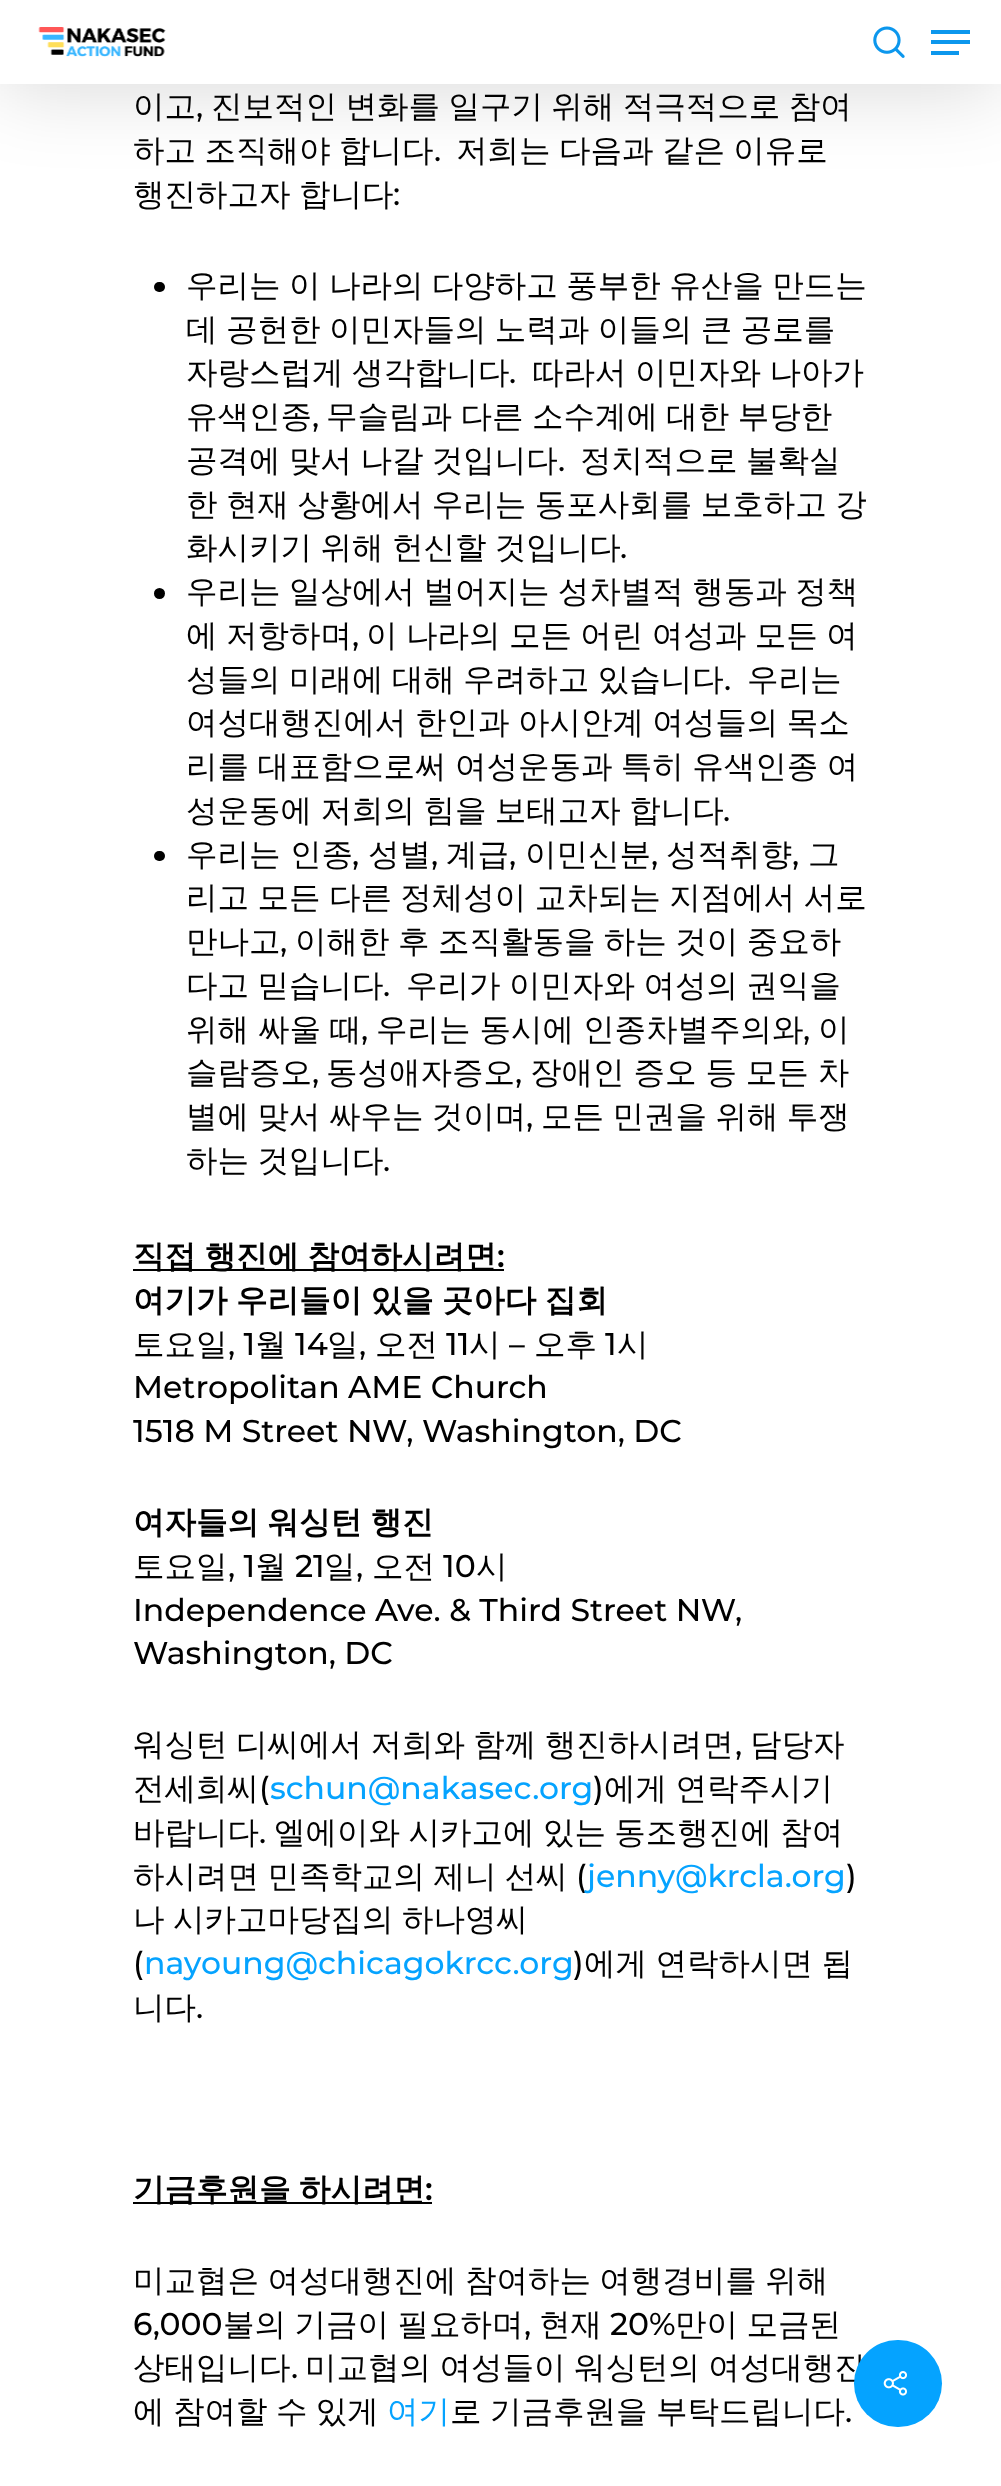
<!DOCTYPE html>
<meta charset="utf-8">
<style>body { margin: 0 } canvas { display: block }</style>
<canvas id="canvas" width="1001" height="2486"></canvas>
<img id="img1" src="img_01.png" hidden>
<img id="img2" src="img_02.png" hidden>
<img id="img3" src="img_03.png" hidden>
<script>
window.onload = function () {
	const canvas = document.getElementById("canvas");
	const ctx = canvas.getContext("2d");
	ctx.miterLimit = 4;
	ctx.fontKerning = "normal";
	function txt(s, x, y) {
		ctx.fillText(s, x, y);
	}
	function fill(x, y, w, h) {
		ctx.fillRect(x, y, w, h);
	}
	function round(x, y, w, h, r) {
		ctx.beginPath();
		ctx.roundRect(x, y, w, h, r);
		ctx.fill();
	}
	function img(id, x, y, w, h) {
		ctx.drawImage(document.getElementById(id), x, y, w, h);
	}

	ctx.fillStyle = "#FFFFFF";
	fill(0, 0, 1001, 2486);
	ctx.fillStyle = "rgba(0, 0, 0, 0.15)";
	ctx.filter = "blur(39.5px)";
	ctx.beginPath();
	ctx.rect(0, -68, 1001, 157);
	ctx.fill();
	ctx.filter = "none";
	ctx.fillStyle = "#FFFFFF";
	fill(0, 0, 1001, 84);
	img("img1", 38, 27, 128, 30);
	img("img2", 873, 26, 32, 32);
	ctx.fillStyle = "#0C97ED";
	fill(931, 30, 39, 4);
	fill(931, 51, 28, 4);
	fill(931, 40, 39, 4);
	ctx.fillStyle = "#000000";
	round(154, 282, 11, 10, 5);
	ctx.beginPath();
	ctx.arc(159.5, 593.5, 5.5, 0, Math.PI * 2);
	ctx.fill();
	round(154, 851, 11, 10, 5);
	fill(133, 1269, 371, 2);
	fill(133, 2202, 299, 2);
	ctx.font = "500 31.5px WenQuanYi Zen Hei";
	txt("이고", 133, 117);
	ctx.font = "500 31.5px Montserrat";
	txt(",", 196, 117);
	ctx.wordSpacing = "-1px";
	ctx.font = "500 31.5px WenQuanYi Zen Hei";
	txt("진보적인 변화를 일구기 위해 적극적으로 참여", 211, 117);
	txt("하고 조직해야 합니다", 133, 161);
	ctx.wordSpacing = "0px";
	ctx.font = "500 31.5px Montserrat";
	txt(".", 434, 161);
	ctx.wordSpacing = "-1px";
	ctx.font = "500 31.5px WenQuanYi Zen Hei";
	txt("저희는 다음과 같은 이유로", 456, 161);
	txt("행진하고자 합니다", 133, 205);
	ctx.wordSpacing = "0px";
	ctx.font = "500 31.5px Montserrat";
	txt(":", 393, 205);
	ctx.wordSpacing = "-1px";
	ctx.font = "500 31.5px WenQuanYi Zen Hei";
	txt("우리는 이 나라의 다양하고 풍부한 유산을 만드는", 186, 296);
	txt("데 공헌한 이민자들의 노력과 이들의 큰 공로를", 186, 340);
	txt("자랑스럽게 생각합니다", 186, 383);
	ctx.wordSpacing = "0px";
	ctx.font = "500 31.5px Montserrat";
	txt(".", 509, 383);
	ctx.wordSpacing = "-1px";
	ctx.font = "500 31.5px WenQuanYi Zen Hei";
	txt("따라서 이민자와 나아가", 532, 383);
	ctx.wordSpacing = "0px";
	txt("유색인종", 186, 427);
	ctx.font = "500 31.5px Montserrat";
	txt(",", 312, 427);
	ctx.wordSpacing = "-1px";
	ctx.font = "500 31.5px WenQuanYi Zen Hei";
	txt("무슬림과 다른 소수계에 대한 부당한", 326, 427);
	txt("공격에 맞서 나갈 것입니다", 186, 471);
	ctx.wordSpacing = "0px";
	ctx.font = "500 31.5px Montserrat";
	txt(".", 558, 471);
	ctx.wordSpacing = "-1px";
	ctx.font = "500 31.5px WenQuanYi Zen Hei";
	txt("정치적으로 불확실", 580, 471);
	txt("한 현재 상황에서 우리는 동포사회를 보호하고 강", 186, 515);
	txt("화시키기 위해 헌신할 것입니다", 186, 558);
	ctx.wordSpacing = "0px";
	ctx.font = "500 31.5px Montserrat";
	txt(".", 620, 558);
	ctx.wordSpacing = "-1px";
	ctx.font = "500 31.5px WenQuanYi Zen Hei";
	txt("우리는 일상에서 벌어지는 성차별적 행동과 정책", 186, 602);
	txt("에 저항하며", 186, 646);
	ctx.wordSpacing = "0px";
	ctx.font = "500 31.5px Montserrat";
	txt(",", 352, 646);
	ctx.wordSpacing = "-1px";
	ctx.font = "500 31.5px WenQuanYi Zen Hei";
	txt("이 나라의 모든 어린 여성과 모든 여", 366, 646);
	txt("성들의 미래에 대해 우려하고 있습니다", 186, 690);
	ctx.wordSpacing = "0px";
	ctx.font = "500 31.5px Montserrat";
	txt(".", 724, 690);
	ctx.font = "500 31.5px WenQuanYi Zen Hei";
	txt("우리는", 747, 690);
	ctx.wordSpacing = "-1px";
	txt("여성대행진에서 한인과 아시안계 여성들의 목소", 186, 733);
	txt("리를 대표함으로써 여성운동과 특히 유색인종 여", 186, 777);
	txt("성운동에 저희의 힘을 보태고자 합니다", 186, 821);
	ctx.wordSpacing = "0px";
	ctx.font = "500 31.5px Montserrat";
	txt(".", 723, 821);
	ctx.font = "500 31.5px WenQuanYi Zen Hei";
	txt("우리는 인종", 186, 865);
	txt("성별", 368, 865);
	txt("계급", 446, 865);
	txt("이민신분", 525, 865);
	txt("성적취향", 666, 865);
	txt("그", 808, 865);
	ctx.font = "500 31.5px Montserrat";
	txt(",", 352, 865);
	txt(",", 431, 865);
	txt(",", 509, 865);
	txt(",", 651, 865);
	txt(",", 792, 865);
	ctx.wordSpacing = "-1px";
	ctx.font = "500 31.5px WenQuanYi Zen Hei";
	txt("리고 모든 다른 정체성이 교차되는 지점에서 서로", 186, 908);
	ctx.wordSpacing = "0px";
	txt("만나고", 186, 952);
	ctx.font = "500 31.5px Montserrat";
	txt(",", 280, 952);
	ctx.wordSpacing = "-1px";
	ctx.font = "500 31.5px WenQuanYi Zen Hei";
	txt("이해한 후 조직활동을 하는 것이 중요하", 295, 952);
	txt("다고 믿습니다", 186, 996);
	ctx.wordSpacing = "0px";
	ctx.font = "500 31.5px Montserrat";
	txt(".", 383, 996);
	ctx.wordSpacing = "-1px";
	ctx.font = "500 31.5px WenQuanYi Zen Hei";
	txt("우리가 이민자와 여성의 권익을", 406, 996);
	ctx.wordSpacing = "-0.5px";
	txt("위해 싸울 때", 186, 1040);
	ctx.wordSpacing = "0px";
	ctx.font = "500 31.5px Montserrat";
	txt(",", 361, 1040);
	ctx.wordSpacing = "-0.5px";
	ctx.font = "500 31.5px WenQuanYi Zen Hei";
	txt("우리는 동시에 인종차별주의와", 376, 1040);
	ctx.wordSpacing = "0px";
	ctx.font = "500 31.5px Montserrat";
	txt(",", 803, 1040);
	ctx.font = "500 31.5px WenQuanYi Zen Hei";
	txt("이", 818, 1040);
	txt("슬람증오", 186, 1083);
	ctx.font = "500 31.5px Montserrat";
	txt(",", 312, 1083);
	ctx.font = "500 31.5px WenQuanYi Zen Hei";
	txt("동성애자증오", 326, 1083);
	ctx.font = "500 31.5px Montserrat";
	txt(",", 515, 1083);
	ctx.wordSpacing = "-0.5px";
	ctx.font = "500 31.5px WenQuanYi Zen Hei";
	txt("장애인 증오 등 모든 차", 530, 1083);
	ctx.wordSpacing = "-1px";
	txt("별에 맞서 싸우는 것이며", 186, 1127);
	ctx.wordSpacing = "0px";
	ctx.font = "500 31.5px Montserrat";
	txt(",", 526, 1127);
	ctx.wordSpacing = "-1px";
	ctx.font = "500 31.5px WenQuanYi Zen Hei";
	txt("모든 민권을 위해 투쟁", 541, 1127);
	txt("하는 것입니다", 186, 1171);
	ctx.wordSpacing = "0px";
	ctx.font = "500 31.5px Montserrat";
	txt(".", 383, 1171);
	ctx.wordSpacing = "-1px";
	ctx.font = "bold 31.5px WenQuanYi Zen Hei";
	txt("직접 행진에 참여하시려면", 133, 1267);
	ctx.wordSpacing = "0px";
	ctx.font = "600 31.5px Montserrat";
	txt(":", 497, 1267);
	ctx.wordSpacing = "-1px";
	ctx.font = "bold 31.5px WenQuanYi Zen Hei";
	txt("여기가 우리들이 있을 곳아다 집회", 133, 1311);
	ctx.wordSpacing = "0px";
	ctx.font = "500 31.5px WenQuanYi Zen Hei";
	txt("토요일", 133, 1355);
	ctx.font = "500 31.5px Montserrat";
	txt(", 1", 228, 1355);
	ctx.font = "500 31.5px WenQuanYi Zen Hei";
	txt("월", 255, 1355);
	ctx.font = "500 31.5px Montserrat";
	txt("14", 295, 1355);
	ctx.font = "500 31.5px WenQuanYi Zen Hei";
	txt("일", 327, 1355);
	txt("오전", 375, 1355);
	ctx.font = "500 31.5px Montserrat";
	txt("11", 446, 1355);
	ctx.font = "500 31.5px WenQuanYi Zen Hei";
	txt("시", 469, 1355);
	ctx.font = "500 31.5px Montserrat";
	txt("–", 509, 1355);
	ctx.font = "500 31.5px WenQuanYi Zen Hei";
	txt("오후", 534, 1355);
	ctx.font = "500 31.5px Montserrat";
	txt("1", 605, 1355);
	ctx.font = "500 31.5px WenQuanYi Zen Hei";
	txt("시", 617, 1355);
	ctx.font = "500 31.5px Montserrat";
	txt(",", 359, 1355);
	txt("Metropolitan AME Church", 133, 1398);
	txt("1518 M Street NW, Washington, DC", 133, 1442);
	ctx.wordSpacing = "-1px";
	ctx.font = "bold 31.5px WenQuanYi Zen Hei";
	txt("여자들의 워싱턴 행진", 133, 1533);
	ctx.wordSpacing = "0px";
	ctx.font = "500 31.5px WenQuanYi Zen Hei";
	txt("토요일", 133, 1577);
	ctx.font = "500 31.5px Montserrat";
	txt(", 1", 228, 1577);
	ctx.font = "500 31.5px WenQuanYi Zen Hei";
	txt("월", 255, 1577);
	ctx.font = "500 31.5px Montserrat";
	txt("21", 295, 1577);
	ctx.font = "500 31.5px WenQuanYi Zen Hei";
	txt("일", 324, 1577);
	ctx.font = "500 31.5px Montserrat";
	txt(",", 356, 1577);
	ctx.font = "500 31.5px WenQuanYi Zen Hei";
	txt("오전", 372, 1577);
	ctx.font = "500 31.5px Montserrat";
	txt("10", 443, 1577);
	ctx.font = "500 31.5px WenQuanYi Zen Hei";
	txt("시", 476, 1577);
	ctx.font = "500 31.5px Montserrat";
	txt("Independence Ave. & Third Street NW,", 133, 1621);
	txt("Washington, DC", 133, 1664);
	ctx.wordSpacing = "-1px";
	ctx.font = "500 31.5px WenQuanYi Zen Hei";
	txt("워싱턴 디씨에서 저희와 함께 행진하시려면", 133, 1755);
	ctx.wordSpacing = "0px";
	ctx.font = "500 31.5px Montserrat";
	txt(",", 735, 1755);
	ctx.font = "500 31.5px WenQuanYi Zen Hei";
	txt("담당자", 750, 1755);
	txt("전세희씨", 133, 1799);
	ctx.font = "500 31.5px Montserrat";
	txt("(", 259, 1799);
	ctx.fillStyle = "#05A3FF";
	txt("schun@nakasec.org", 270, 1799);
	ctx.fillStyle = "#000000";
	txt(")", 593, 1799);
	ctx.wordSpacing = "-1px";
	ctx.font = "500 31.5px WenQuanYi Zen Hei";
	txt("에게 연락주시기", 604, 1799);
	ctx.wordSpacing = "0px";
	txt("바랍니다", 133, 1843);
	ctx.font = "500 31.5px Montserrat";
	txt(".", 259, 1843);
	ctx.wordSpacing = "-1px";
	ctx.font = "500 31.5px WenQuanYi Zen Hei";
	txt("엘에이와 시카고에 있는 동조행진에 참여", 274, 1843);
	txt("하시려면 민족학교의 제니 선씨", 133, 1887);
	ctx.wordSpacing = "0px";
	ctx.font = "500 31.5px Montserrat";
	txt("(", 576, 1887);
	ctx.fillStyle = "#05A3FF";
	txt("jenny@krcla.org", 587, 1887);
	ctx.fillStyle = "#000000";
	txt(")", 846, 1887);
	ctx.wordSpacing = "-1px";
	ctx.font = "500 31.5px WenQuanYi Zen Hei";
	txt("나 시카고마당집의 하나영씨", 133, 1930);
	ctx.wordSpacing = "0px";
	ctx.font = "500 31.5px Montserrat";
	txt("(", 133, 1974);
	ctx.fillStyle = "#05A3FF";
	txt("nayoung@chicagokrcc.org", 144, 1974);
	ctx.fillStyle = "#000000";
	txt(")", 573, 1974);
	ctx.wordSpacing = "-1px";
	ctx.font = "500 31.5px WenQuanYi Zen Hei";
	txt("에게 연락하시면 됩", 584, 1974);
	ctx.wordSpacing = "0px";
	txt("니다", 133, 2018);
	ctx.font = "500 31.5px Montserrat";
	txt(".", 196, 2018);
	ctx.wordSpacing = "-1px";
	ctx.font = "bold 31.5px WenQuanYi Zen Hei";
	txt("기금후원을 하시려면", 133, 2200);
	ctx.wordSpacing = "0px";
	ctx.font = "600 31.5px Montserrat";
	txt(":", 425, 2200);
	ctx.wordSpacing = "-1px";
	ctx.font = "500 31.5px WenQuanYi Zen Hei";
	txt("미교협은 여성대행진에 참여하는 여행경비를 위해", 133, 2291);
	ctx.wordSpacing = "0px";
	ctx.font = "500 31.5px Montserrat";
	txt("6,000", 133, 2335);
	ctx.wordSpacing = "-1px";
	ctx.font = "500 31.5px WenQuanYi Zen Hei";
	txt("불의 기금이 필요하며", 223, 2335);
	ctx.wordSpacing = "0px";
	ctx.font = "500 31.5px Montserrat";
	txt(",", 524, 2335);
	ctx.font = "500 31.5px WenQuanYi Zen Hei";
	txt("현재", 539, 2335);
	ctx.font = "500 31.5px Montserrat";
	txt("20%", 610, 2335);
	ctx.wordSpacing = "-1px";
	ctx.font = "500 31.5px WenQuanYi Zen Hei";
	txt("만이 모금된", 675, 2335);
	ctx.wordSpacing = "0px";
	txt("상태입니다", 133, 2378);
	ctx.font = "500 31.5px Montserrat";
	txt(".", 291, 2378);
	ctx.wordSpacing = "-1px";
	ctx.font = "500 31.5px WenQuanYi Zen Hei";
	txt("미교협의 여성들이 워싱턴의 여성대행진", 305, 2378);
	txt("에 참여할 수 있게", 133, 2422);
	ctx.wordSpacing = "0px";
	ctx.fillStyle = "#05A3FF";
	txt("여기", 387, 2422);
	ctx.wordSpacing = "-1px";
	ctx.fillStyle = "#000000";
	txt("로 기금후원을 부탁드립니다", 450, 2422);
	ctx.wordSpacing = "0px";
	ctx.font = "500 31.5px Montserrat";
	txt(".", 845, 2422);
	ctx.fillStyle = "#05A3FF";
	round(854, 2340, 88, 87, 43.5);
	img("img3", 883, 2371, 24, 25);
};
</script>
